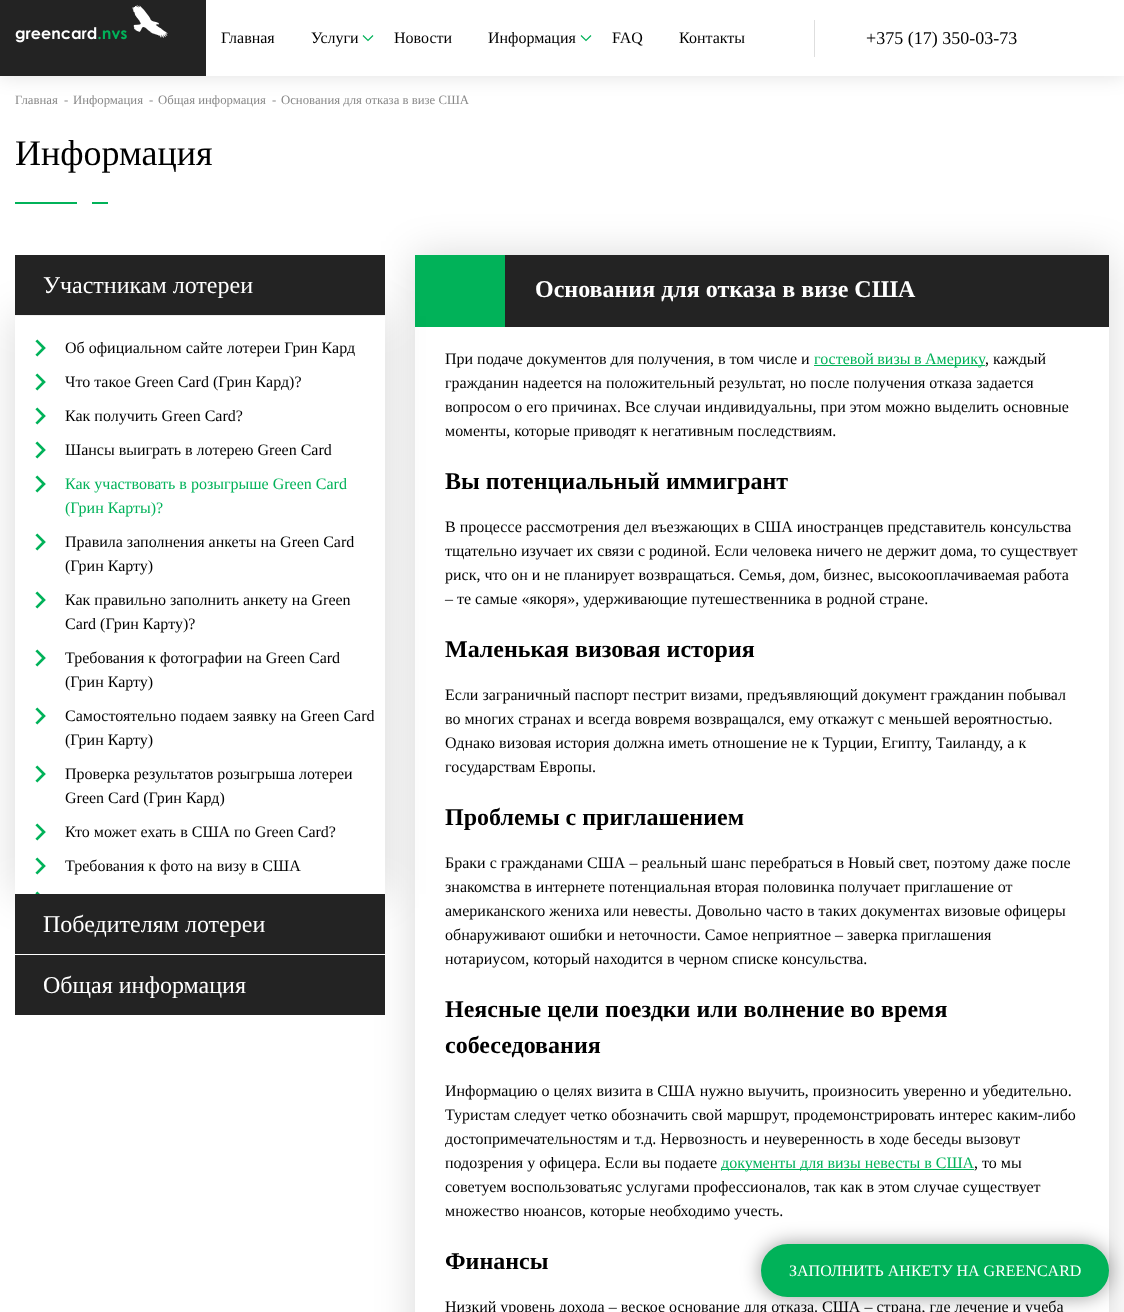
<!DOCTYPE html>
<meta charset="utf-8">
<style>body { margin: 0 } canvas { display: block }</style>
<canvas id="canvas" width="1124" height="1312"></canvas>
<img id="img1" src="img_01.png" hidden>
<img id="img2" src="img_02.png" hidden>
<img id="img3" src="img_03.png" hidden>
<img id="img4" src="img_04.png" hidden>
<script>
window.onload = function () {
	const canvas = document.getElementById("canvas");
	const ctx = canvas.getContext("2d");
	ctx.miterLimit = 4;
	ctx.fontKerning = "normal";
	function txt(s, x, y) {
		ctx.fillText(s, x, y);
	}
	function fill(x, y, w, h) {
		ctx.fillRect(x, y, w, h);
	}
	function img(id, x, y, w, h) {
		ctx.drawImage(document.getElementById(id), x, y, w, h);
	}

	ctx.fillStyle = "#FFFFFF";
	fill(0, 0, 1124, 1312);
	ctx.fillStyle = "rgba(0, 0, 0, 0.12)";
	ctx.filter = "blur(10px)";
	ctx.beginPath();
	ctx.rect(0, 0, 1124, 76);
	ctx.fill();
	ctx.filter = "none";
	ctx.fillStyle = "#FFFFFF";
	fill(206, 0, 918, 76);
	ctx.fillStyle = "#232323";
	fill(0, 0, 206, 76);
	img("img1", 15, 5, 153, 38);
	ctx.beginPath();
	ctx.moveTo(363, 35.5);
	ctx.lineTo(368, 40.5);
	ctx.lineTo(373, 35.5);
	ctx.strokeStyle = "#01B259";
	ctx.lineWidth = 1.2;
	ctx.stroke();
	ctx.beginPath();
	ctx.moveTo(581, 35.5);
	ctx.lineTo(586, 40.5);
	ctx.lineTo(591, 35.5);
	ctx.stroke();
	ctx.fillStyle = "#DEDEDE";
	fill(814, 20, 1, 37);
	ctx.fillStyle = "rgba(0, 0, 0, 0.4)";
	ctx.filter = "blur(10px)";
	ctx.beginPath();
	ctx.roundRect(761, 1244, 348, 53, 26.5);
	ctx.fill();
	ctx.filter = "none";
	ctx.save();
	ctx.beginPath();
	ctx.moveTo(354, 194);
	ctx.lineTo(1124, 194);
	ctx.lineTo(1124, 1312);
	ctx.lineTo(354, 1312);
	ctx.closePath();
	ctx.moveTo(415, 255);
	ctx.lineTo(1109, 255);
	ctx.lineTo(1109, 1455);
	ctx.lineTo(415, 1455);
	ctx.closePath();
	ctx.clip("evenodd");
	ctx.fillStyle = "rgba(0, 0, 0, 0.15)";
	ctx.filter = "blur(20px)";
	ctx.beginPath();
	ctx.rect(415, 255, 694, 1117);
	ctx.fill();
	ctx.filter = "none";
	ctx.restore();
	ctx.fillStyle = "#01B259";
	ctx.beginPath();
	ctx.roundRect(762, 1245, 346, 51, 25.5);
	ctx.fill();
	ctx.lineWidth = 2;
	ctx.stroke();
	img("img2", 15, 202, 93, 2);
	fill(415, 255, 90, 72);
	ctx.fillStyle = "rgba(0, 0, 0, 0.15)";
	ctx.filter = "blur(20px)";
	ctx.beginPath();
	ctx.rect(15, 316, 370, 578);
	ctx.fill();
	ctx.filter = "none";
	ctx.fillStyle = "#232323";
	fill(15, 255, 370, 60);
	ctx.fillStyle = "#FFFFFF";
	fill(15, 316, 370, 578);
	img("img3", 35, 339, 11, 18);
	img("img3", 35, 373, 11, 18);
	img("img3", 35, 407, 11, 18);
	img("img3", 35, 441, 11, 18);
	img("img3", 35, 475, 11, 18);
	img("img3", 35, 533, 11, 18);
	img("img3", 35, 591, 11, 18);
	img("img3", 35, 649, 11, 18);
	img("img3", 35, 707, 11, 18);
	img("img3", 35, 765, 11, 18);
	img("img3", 35, 823, 11, 18);
	img("img3", 35, 857, 11, 18);
	img("img4", 35, 891, 5, 3);
	ctx.fillStyle = "#232323";
	fill(15, 894, 370, 60);
	fill(15, 955, 370, 60);
	fill(505, 255, 604, 72);
	ctx.fillStyle = "#01B259";
	fill(814, 365, 171, 1);
	fill(721, 1169, 253, 1);
	ctx.font = "16px Liberation Serif";
	ctx.fillStyle = "#000000";
	txt("Главная", 221, 43);
	txt("Услуги", 311, 43);
	txt("Новости", 394, 43);
	txt("Информация", 488, 43);
	txt("FAQ", 612, 43);
	txt("Контакты", 679, 43);
	ctx.font = "18px Liberation Serif";
	txt("+375 (17) 350-03-73", 866, 44);
	ctx.font = "16px Liberation Serif";
	ctx.fillStyle = "#FFFFFF";
	txt("ЗАПОЛНИТЬ АНКЕТУ НА GREENCARD", 789, 1276);
	ctx.font = "12.75px Liberation Serif";
	ctx.fillStyle = "#898989";
	txt("Главная", 15, 104);
	txt("-", 64, 104);
	txt("Информация", 73, 104);
	txt("-", 149, 104);
	txt("Общая информация", 158, 104);
	txt("-", 272, 104);
	txt("Основания для отказа в визе США", 281, 104);
	ctx.font = "36px Liberation Serif";
	ctx.fillStyle = "#000000";
	txt("Информация", 15, 165);
	ctx.font = "24px Liberation Serif";
	ctx.fillStyle = "#FFFFFF";
	txt("Участникам лотереи", 43, 293);
	ctx.font = "16px Liberation Serif";
	ctx.fillStyle = "#000000";
	txt("Об официальном сайте лотереи Грин Кард", 65, 353);
	txt("Что такое Green Card (Грин Кард)?", 65, 387);
	txt("Как получить Green Card?", 65, 421);
	txt("Шансы выиграть в лотерею Green Card", 65, 455);
	ctx.fillStyle = "#01B259";
	txt("Как участвовать в розыгрыше Green Card", 65, 489);
	txt("(Грин Карты)?", 65, 513);
	ctx.fillStyle = "#000000";
	txt("Правила заполнения анкеты на Green Card", 65, 547);
	txt("(Грин Карту)", 65, 571);
	txt("Как правильно заполнить анкету на Green", 65, 605);
	txt("Card (Грин Карту)?", 65, 629);
	txt("Требования к фотографии на Green Card", 65, 663);
	txt("(Грин Карту)", 65, 687);
	txt("Самостоятельно подаем заявку на Green Card", 65, 721);
	txt("(Грин Карту)", 65, 745);
	txt("Проверка результатов розыгрыша лотереи", 65, 779);
	txt("Green Card (Грин Кард)", 65, 803);
	txt("Кто может ехать в США по Green Card?", 65, 837);
	txt("Требования к фото на визу в США", 65, 871);
	ctx.font = "24px Liberation Serif";
	ctx.fillStyle = "#FFFFFF";
	txt("Победителям лотереи", 43, 932);
	txt("Общая информация", 43, 993);
	ctx.font = "bold 24px Liberation Serif";
	txt("Основания для отказа в визе США", 535, 297);
	ctx.font = "16px Liberation Serif";
	ctx.fillStyle = "#000000";
	txt("При подаче документов для получения, в том числе и", 445, 364);
	ctx.wordSpacing = "-0.5px";
	ctx.fillStyle = "#01B259";
	txt("гостевой визы в Америку", 814, 364);
	ctx.wordSpacing = "0px";
	ctx.fillStyle = "#000000";
	txt(", каждый", 985, 364);
	txt("гражданин надеется на положительный результат, но после получения отказа задается", 445, 388);
	txt("вопросом о его причинах. Все случаи индивидуальны, при этом можно выделить основные", 445, 412);
	txt("моменты, которые приводят к негативным последствиям.", 445, 436);
	ctx.font = "bold 24px Liberation Serif";
	txt("Вы потенциальный иммигрант", 445, 489);
	ctx.font = "16px Liberation Serif";
	txt("В процессе рассмотрения дел въезжающих в США иностранцев представитель консульства", 445, 532);
	txt("тщательно изучает их связи с родиной. Если человека ничего не держит дома, то существует", 445, 556);
	txt("риск, что он и не планирует возвращаться. Семья, дом, бизнес, высокооплачиваемая работа", 445, 580);
	txt("– те самые «якоря», удерживающие путешественника в родной стране.", 445, 604);
	ctx.font = "bold 24px Liberation Serif";
	txt("Маленькая визовая история", 445, 657);
	ctx.font = "16px Liberation Serif";
	txt("Если заграничный паспорт пестрит визами, предъявляющий документ гражданин побывал", 445, 700);
	txt("во многих странах и всегда вовремя возвращался, ему откажут с меньшей вероятностью.", 445, 724);
	txt("Однако визовая история должна иметь отношение не к Турции, Египту, Таиланду, а к", 445, 748);
	txt("государствам Европы.", 445, 772);
	ctx.font = "bold 24px Liberation Serif";
	txt("Проблемы с приглашением", 445, 825);
	ctx.font = "16px Liberation Serif";
	txt("Браки с гражданами США – реальный шанс перебраться в Новый свет, поэтому даже после", 445, 868);
	txt("знакомства в интернете потенциальная вторая половинка получает приглашение от", 445, 892);
	txt("американского жениха или невесты. Довольно часто в таких документах визовые офицеры", 445, 916);
	txt("обнаруживают ошибки и неточности. Самое неприятное – заверка приглашения", 445, 940);
	txt("нотариусом, который находится в черном списке консульства.", 445, 964);
	ctx.font = "bold 24px Liberation Serif";
	txt("Неясные цели поездки или волнение во время", 445, 1017);
	txt("собеседования", 445, 1053);
	ctx.font = "16px Liberation Serif";
	txt("Информацию о целях визита в США нужно выучить, произносить уверенно и убедительно.", 445, 1096);
	txt("Туристам следует четко обозначить свой маршрут, продемонстрировать интерес каким-либо", 445, 1120);
	txt("достопримечательностям и т.д. Нервозность и неуверенность в ходе беседы вызовут", 445, 1144);
	txt("подозрения у офицера. Если вы подаете", 445, 1168);
	ctx.fillStyle = "#01B259";
	txt("документы для визы невесты в США", 721, 1168);
	ctx.fillStyle = "#000000";
	txt(", то мы", 974, 1168);
	txt("советуем воспользоватьяс услугами профессионалов, так как в этом случае существует", 445, 1192);
	txt("множество нюансов, которые необходимо учесть.", 445, 1216);
	ctx.font = "bold 24px Liberation Serif";
	txt("Финансы", 445, 1269);
	ctx.font = "16px Liberation Serif";
	txt("Низкий уровень дохода – веское основание для отказа. США – страна, где лечение и учеба", 445, 1312);
};
</script>
